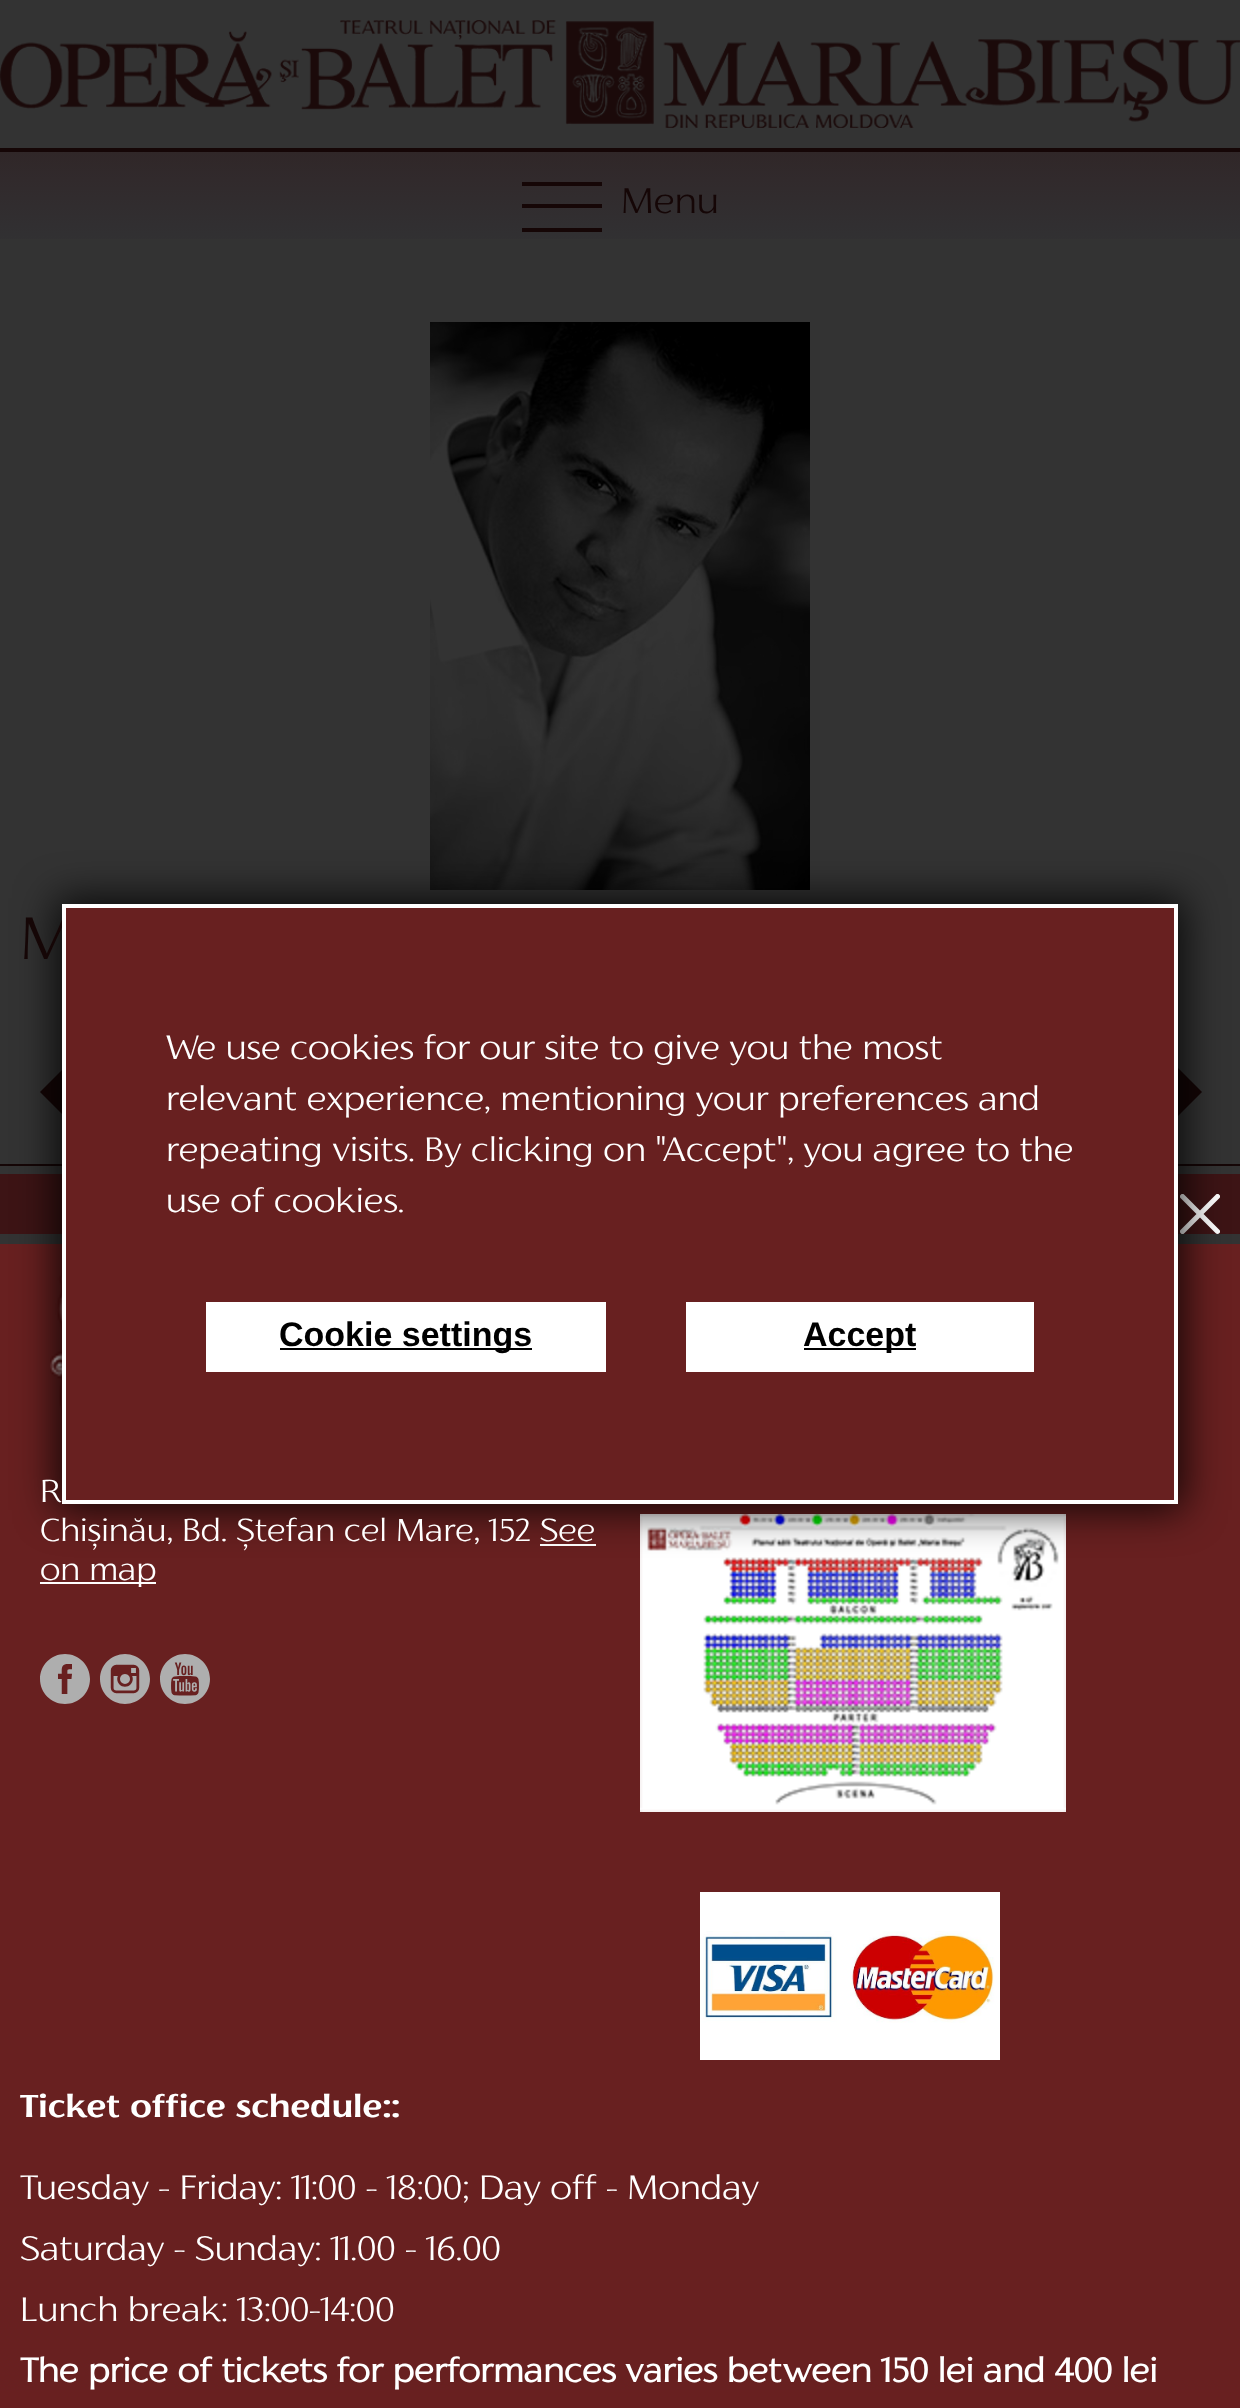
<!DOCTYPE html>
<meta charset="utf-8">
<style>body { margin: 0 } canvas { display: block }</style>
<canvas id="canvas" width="1240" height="2408"></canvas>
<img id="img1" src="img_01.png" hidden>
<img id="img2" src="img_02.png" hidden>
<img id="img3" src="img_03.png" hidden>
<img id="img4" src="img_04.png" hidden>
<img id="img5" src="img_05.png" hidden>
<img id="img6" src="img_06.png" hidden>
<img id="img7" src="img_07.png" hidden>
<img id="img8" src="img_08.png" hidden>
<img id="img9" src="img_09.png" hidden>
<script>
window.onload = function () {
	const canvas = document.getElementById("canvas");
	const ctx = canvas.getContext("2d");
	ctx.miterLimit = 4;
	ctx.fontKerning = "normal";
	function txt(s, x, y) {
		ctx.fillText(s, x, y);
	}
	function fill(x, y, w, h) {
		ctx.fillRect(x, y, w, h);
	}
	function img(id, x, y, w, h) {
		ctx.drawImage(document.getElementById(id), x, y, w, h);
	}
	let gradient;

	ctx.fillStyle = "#333333";
	fill(0, 0, 1240, 2408);
	ctx.fillStyle = "#3D1415";
	fill(0, 1174, 1240, 60);
	img("img1", 0, 20, 1240, 108);
	gradient = ctx.createLinearGradient(620, 262, 620, 152);
	gradient.addColorStop(0, "#333333");
	gradient.addColorStop(0.25, "#313032");
	gradient.addColorStop(0.5, "#312D2F");
	gradient.addColorStop(0.75, "#312A2C");
	gradient.addColorStop(1, "#302728");
	ctx.fillStyle = gradient;
	fill(0, 152, 1240, 87);
	ctx.fillStyle = "#150606";
	fill(0, 148, 1240, 4);
	fill(522, 182, 80, 4);
	fill(522, 204, 80, 4);
	fill(522, 228, 80, 4);
	img("img2", 430, 322, 380, 568);
	ctx.beginPath();
	ctx.moveTo(74, 1058);
	ctx.lineTo(74, 1126);
	ctx.lineTo(40, 1092);
	ctx.closePath();
	ctx.fill();
	ctx.beginPath();
	ctx.moveTo(1168, 1126);
	ctx.lineTo(1168, 1058);
	ctx.lineTo(1202, 1092);
	ctx.closePath();
	ctx.fill();
	fill(0, 1164, 1240, 2);
	img("img3", 1180, 1194, 40, 40);
	ctx.fillStyle = "#682020";
	fill(0, 1244, 1240, 1164);
	img("img4", 50, 1270, 12, 160);
	ctx.fillStyle = "#FFFFFF";
	fill(540, 1544, 56, 2);
	fill(40, 1582, 116, 2);
	img("img5", 40, 1654, 50, 50);
	img("img6", 100, 1654, 50, 50);
	img("img7", 160, 1654, 50, 50);
	img("img8", 640, 1514, 426, 298);
	img("img9", 700, 1892, 300, 168);
	ctx.fillStyle = "rgba(0, 0, 0, 0.82)";
	ctx.filter = "blur(20px)";
	ctx.beginPath();
	ctx.rect(56, 898, 1128, 612);
	ctx.fill();
	ctx.filter = "none";
	ctx.font = "300 36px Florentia";
	ctx.fillStyle = "#150606";
	txt("Menu", 621, 213);
	ctx.font = "300 60px Florentia";
	txt("M", 20, 959);
	ctx.font = "300 32px Florentia";
	ctx.fillStyle = "#FFFFFF";
	txt("R", 40, 1502);
	txt("Chișinău, Bd. Ștefan cel Mare, 152 See", 40, 1541);
	txt("on map", 40, 1580);
	ctx.font = "bold 32px Florentia";
	txt("Ticket office schedule::", 20, 2117);
	ctx.font = "300 34px Florentia";
	txt("Tuesday - Friday: 11:00 - 18:00; Day off - Monday", 20, 2199);
	txt("Saturday - Sunday: 11.00 - 16.00", 20, 2260);
	txt("Lunch break: 13:00-14:00", 20, 2321);
	ctx.font = "bold 34px 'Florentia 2'";
	txt("The price of tickets for performances varies between 150 lei and 400 lei", 20, 2382);
	ctx.fillStyle = "#682020";
	ctx.beginPath();
	ctx.rect(64, 906, 1112, 596);
	ctx.fill();
	ctx.strokeStyle = "#FFFFFF";
	ctx.lineWidth = 4;
	ctx.stroke();
	ctx.font = "300 34px Florentia";
	ctx.fillStyle = "#FFFFFF";
	txt("We use cookies for our site to give you the most", 166, 1059);
	txt("relevant experience, mentioning your preferences and", 166, 1110);
	txt("repeating visits. By clicking on \"Accept\", you agree to the", 166, 1161);
	txt("use of cookies.", 166, 1212);
	fill(206, 1302, 400, 70);
	ctx.fillStyle = "#000000";
	fill(280, 1348, 252, 2);
	ctx.font = "bold 34px Liberation Sans";
	txt("Cookie settings", 279, 1346);
	ctx.fillStyle = "#FFFFFF";
	fill(686, 1302, 348, 70);
	ctx.fillStyle = "#000000";
	fill(804, 1348, 112, 2);
	txt("Accept", 803, 1346);
};
</script>
